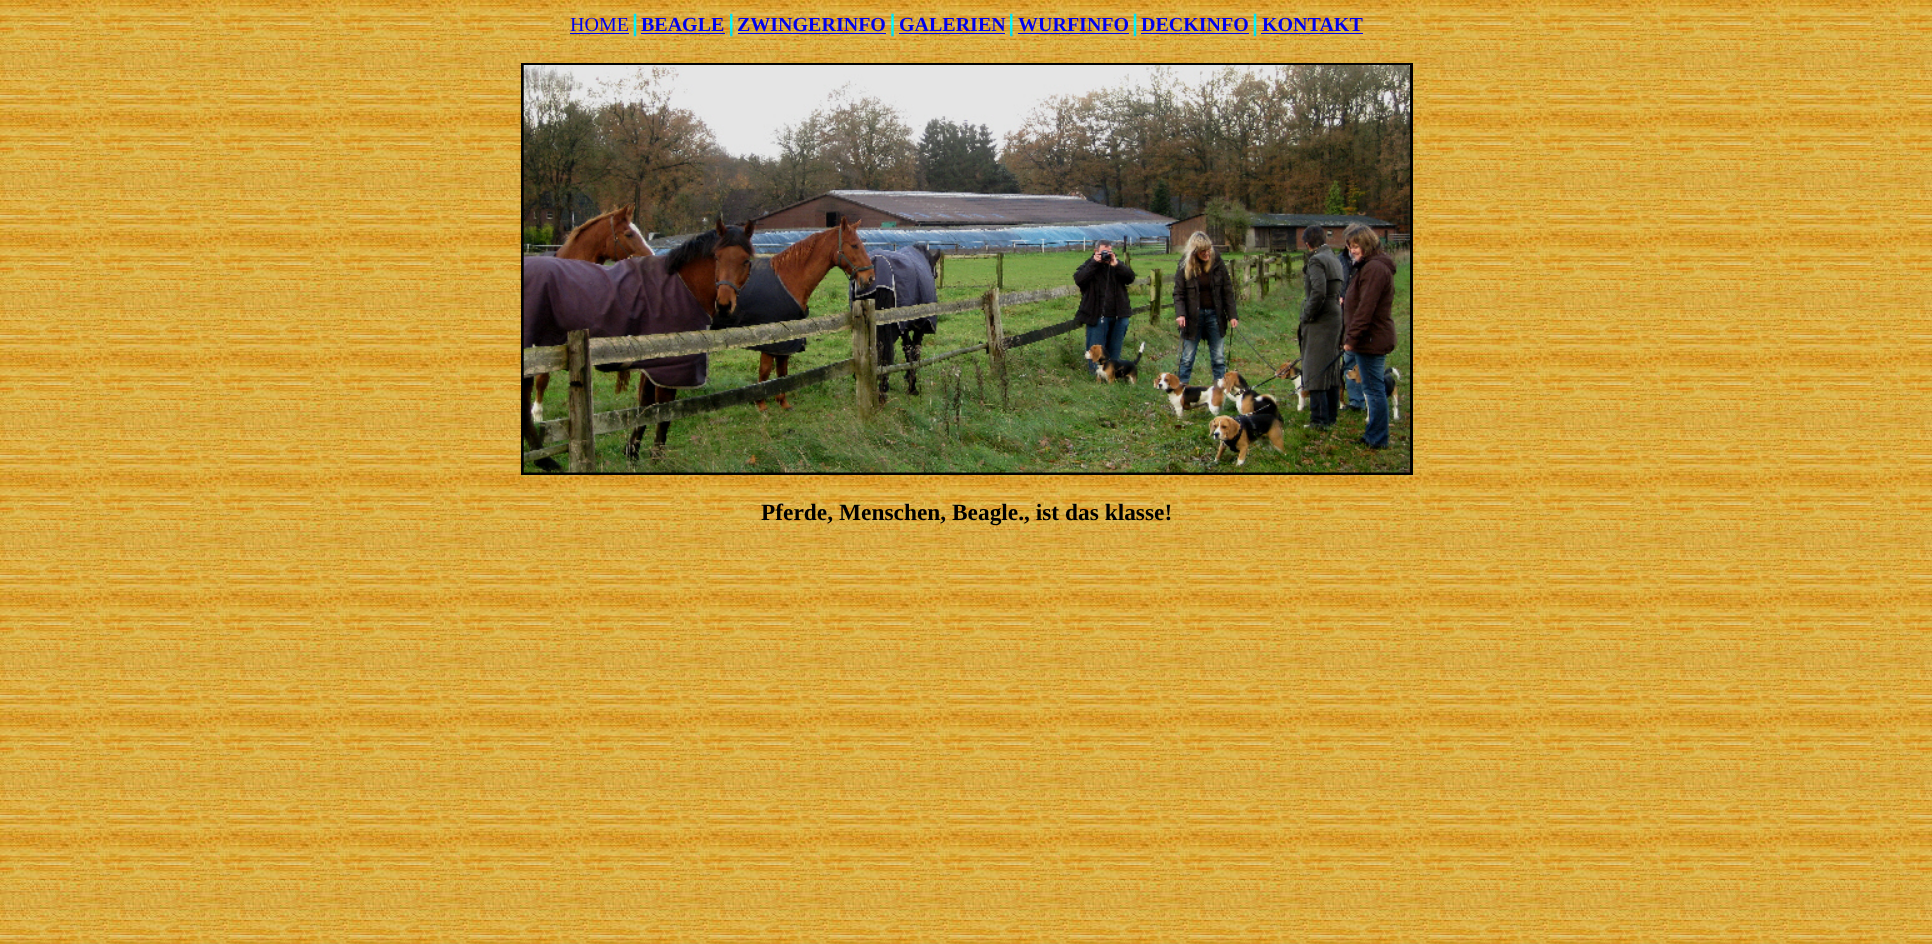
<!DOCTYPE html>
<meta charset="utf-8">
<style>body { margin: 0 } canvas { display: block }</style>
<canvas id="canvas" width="1932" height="944"></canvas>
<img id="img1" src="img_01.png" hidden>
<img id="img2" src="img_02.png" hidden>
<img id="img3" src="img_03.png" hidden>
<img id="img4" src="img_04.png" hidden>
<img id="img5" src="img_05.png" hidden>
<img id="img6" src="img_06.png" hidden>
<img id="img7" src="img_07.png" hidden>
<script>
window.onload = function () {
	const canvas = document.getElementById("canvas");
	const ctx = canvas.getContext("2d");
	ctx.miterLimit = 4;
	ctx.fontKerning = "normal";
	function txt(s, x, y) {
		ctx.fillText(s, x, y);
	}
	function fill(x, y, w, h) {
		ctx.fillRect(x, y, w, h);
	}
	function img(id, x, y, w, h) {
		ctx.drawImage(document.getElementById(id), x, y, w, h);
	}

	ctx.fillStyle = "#FFFFFF";
	fill(0, 0, 1932, 944);
	img("img1", 0, 0, 1932, 944);
	ctx.fillStyle = "#0000EE";
	fill(570, 33, 59, 1);
	img("img2", 633, 13, 4, 24);
	fill(641, 33, 84, 1);
	img("img3", 730, 13, 3, 24);
	fill(738, 33, 148, 1);
	img("img4", 891, 13, 3, 24);
	fill(899, 33, 106, 1);
	img("img5", 1010, 13, 3, 24);
	fill(1018, 33, 111, 1);
	img("img6", 1133, 13, 4, 24);
	fill(1141, 33, 108, 1);
	img("img6", 1253, 13, 4, 24);
	fill(1261, 33, 102, 1);
	ctx.strokeStyle = "#000000";
	ctx.lineWidth = 3;
	ctx.strokeRect(522.5, 64.5, 889, 409);
	img("img7", 523, 65, 887, 408);
	ctx.font = "20px Liberation Serif";
	txt("HOME", 570, 31);
	ctx.font = "bold 20px Liberation Serif";
	txt("BEAGLE", 641, 31);
	txt("ZWINGERINFO", 737, 31);
	txt("GALERIEN", 899, 31);
	txt("WURFINFO", 1018, 31);
	txt("DECKINFO", 1141, 31);
	txt("KONTAKT", 1262, 31);
	ctx.font = "bold 23.4px Liberation Serif";
	ctx.fillStyle = "#000000";
	txt("Pferde, Menschen, Beagle., ist das klasse!", 761, 520);
};
</script>
